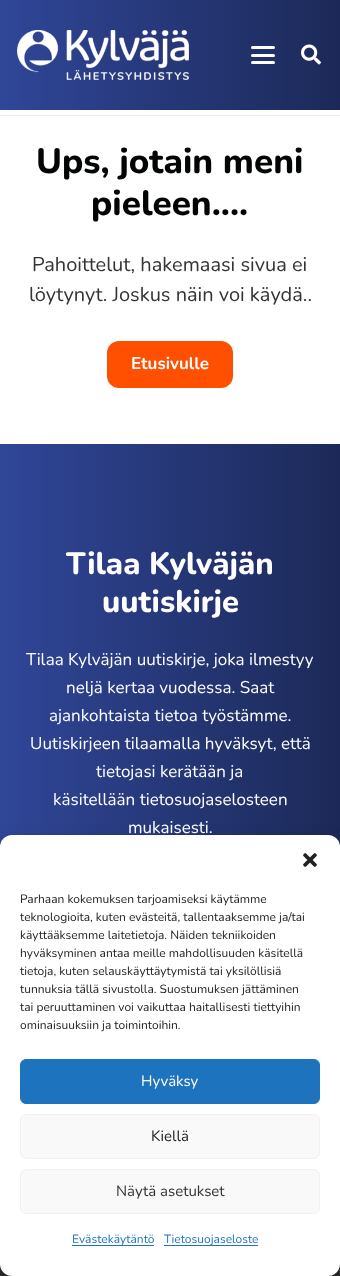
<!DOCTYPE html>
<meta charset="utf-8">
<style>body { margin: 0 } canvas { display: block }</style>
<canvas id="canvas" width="340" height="1276"></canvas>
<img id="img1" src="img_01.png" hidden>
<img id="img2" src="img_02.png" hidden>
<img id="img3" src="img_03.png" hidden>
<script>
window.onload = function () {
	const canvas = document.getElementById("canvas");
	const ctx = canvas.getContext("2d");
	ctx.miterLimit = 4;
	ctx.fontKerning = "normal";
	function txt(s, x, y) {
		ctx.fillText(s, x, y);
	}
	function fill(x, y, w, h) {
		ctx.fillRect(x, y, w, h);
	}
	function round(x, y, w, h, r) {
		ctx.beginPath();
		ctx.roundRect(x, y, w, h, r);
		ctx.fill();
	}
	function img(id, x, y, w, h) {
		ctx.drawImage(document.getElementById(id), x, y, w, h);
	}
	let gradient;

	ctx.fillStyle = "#FFFFFF";
	fill(0, 0, 340, 1276);
	gradient = ctx.createLinearGradient(0, 55, 340, 55);
	gradient.addColorStop(0, "#304698");
	gradient.addColorStop(1, "#1C2958");
	ctx.fillStyle = gradient;
	fill(0, 0, 340, 110);
	img("img1", 17, 30, 172, 50);
	ctx.fillStyle = "#FFFFFF";
	round(251, 54, 24, 3, 1.5);
	round(251, 46, 24, 3, 1.5);
	round(251, 61, 24, 3, 1.5);
	img("img2", 301, 44, 20, 21);
	ctx.fillStyle = "#EBEBEB";
	fill(0, 115, 340, 1);
	ctx.fillStyle = "#FF4F01";
	round(107, 341, 126, 47, 12);
	gradient = ctx.createLinearGradient(0, 777, 340, 777);
	gradient.addColorStop(0, "#304698");
	gradient.addColorStop(1, "#1C2958");
	ctx.fillStyle = gradient;
	fill(0, 444, 340, 403);
	ctx.fillStyle = "#333333";
	fill(0, 1264, 340, 12);
	ctx.fillStyle = "rgba(0, 0, 0, 0.23)";
	ctx.filter = "blur(3px)";
	ctx.beginPath();
	ctx.roundRect(0, 841, 340, 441, 12);
	ctx.fill();
	ctx.filter = "none";
	ctx.fillStyle = "rgba(0, 0, 0, 0.19)";
	ctx.filter = "blur(10px)";
	ctx.beginPath();
	ctx.roundRect(0, 845, 340, 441, 12);
	ctx.fill();
	ctx.filter = "none";
	ctx.fillStyle = "#FFFFFF";
	round(0, 835, 340, 441, 12);
	img("img3", 303, 853, 14, 14);
	ctx.fillStyle = "#1E73BE";
	ctx.beginPath();
	ctx.roundRect(20.5, 1059.5, 299, 44, 5.5);
	ctx.fill();
	ctx.strokeStyle = "#1E73BE";
	ctx.stroke();
	ctx.fillStyle = "#F9F9F9";
	ctx.beginPath();
	ctx.roundRect(20.5, 1114.5, 299, 44, 5.5);
	ctx.fill();
	ctx.strokeStyle = "#F2F2F2";
	ctx.stroke();
	ctx.beginPath();
	ctx.roundRect(20.5, 1169.5, 299, 44, 5.5);
	ctx.fill();
	ctx.stroke();
	ctx.fillStyle = "#1E73BE";
	fill(72, 1245, 82, 1);
	fill(164, 1245, 94, 1);
	ctx.font = "800 35px Nunito";
	ctx.fillStyle = "#020504";
	txt("Ups, jotain meni", 36, 173);
	txt("pieleen....", 91, 215);
	ctx.font = "20px Nunito";
	ctx.fillStyle = "#333333";
	txt("Pahoittelut, hakemaasi sivua ei", 32, 271);
	txt("löytynyt. Joskus näin voi käydä..", 29, 301);
	ctx.font = "bold 17px Nunito";
	ctx.fillStyle = "#FFFFFF";
	txt("Etusivulle", 131, 369);
	ctx.font = "800 31px Nunito";
	txt("Tilaa Kylväjän", 66, 574);
	txt("uutiskirje", 102, 612);
	ctx.font = "17px Nunito";
	txt("Tilaa Kylväjän uutiskirje, joka ilmestyy", 26, 665);
	txt("neljä kertaa vuodessa. Saat", 66, 693);
	txt("ajankohtaista tietoa työstämme.", 49, 721);
	txt("Uutiskirjeen tilaamalla hyväksyt, että", 30, 749);
	txt("tietojasi kerätään ja", 96, 777);
	txt("käsitellään tietosuojaselosteen", 53, 805);
	txt("mukaisesti.", 128, 833);
	ctx.font = "12px Nunito";
	ctx.fillStyle = "#222222";
	txt("Parhaan kokemuksen tarjoamiseksi käytämme", 20, 903);
	txt("teknologioita, kuten evästeitä, tallentaaksemme ja/tai", 20, 921);
	txt("käyttääksemme laitetietoja. Näiden tekniikoiden", 20, 939);
	txt("hyväksyminen antaa meille mahdollisuuden käsitellä", 20, 957);
	txt("tietoja, kuten selauskäyttäytymistä tai yksilöllisiä", 20, 975);
	txt("tunnuksia tällä sivustolla. Suostumuksen jättäminen", 20, 993);
	txt("tai peruuttaminen voi vaikuttaa haitallisesti tiettyihin", 20, 1011);
	txt("ominaisuuksiin ja toimintoihin.", 20, 1029);
	ctx.font = "15px Nunito";
	ctx.fillStyle = "#FFFFFF";
	txt("Hyväksy", 141, 1086);
	ctx.fillStyle = "#222222";
	txt("Kiellä", 151, 1141);
	ctx.fillStyle = "#333333";
	txt("Näytä asetukset", 116, 1196);
	ctx.font = "12px Nunito";
	ctx.fillStyle = "#1E73BE";
	txt("Evästekäytäntö", 72, 1243);
	txt("Tietosuojaseloste", 164, 1243);
};
</script>
